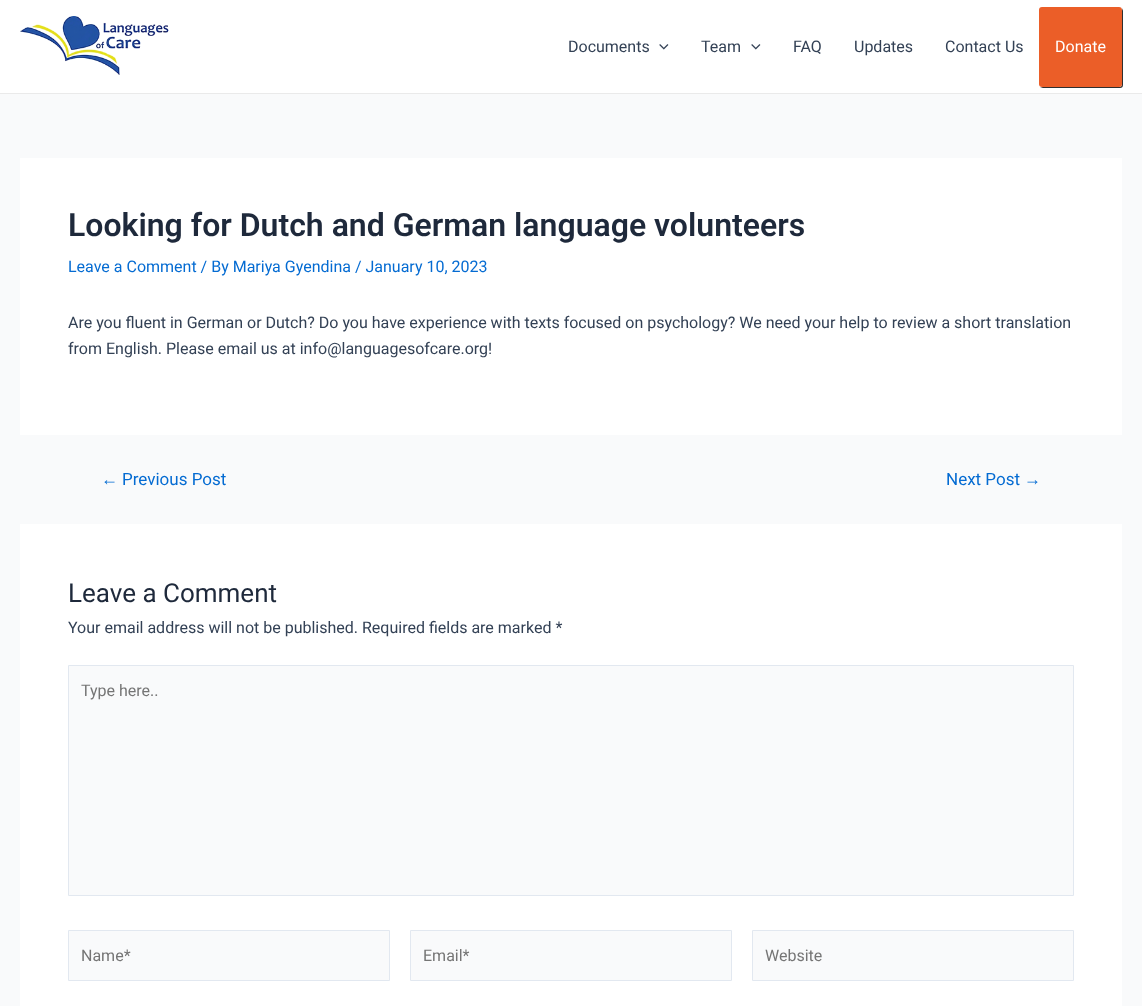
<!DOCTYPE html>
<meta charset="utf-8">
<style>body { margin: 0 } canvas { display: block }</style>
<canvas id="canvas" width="1142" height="1006"></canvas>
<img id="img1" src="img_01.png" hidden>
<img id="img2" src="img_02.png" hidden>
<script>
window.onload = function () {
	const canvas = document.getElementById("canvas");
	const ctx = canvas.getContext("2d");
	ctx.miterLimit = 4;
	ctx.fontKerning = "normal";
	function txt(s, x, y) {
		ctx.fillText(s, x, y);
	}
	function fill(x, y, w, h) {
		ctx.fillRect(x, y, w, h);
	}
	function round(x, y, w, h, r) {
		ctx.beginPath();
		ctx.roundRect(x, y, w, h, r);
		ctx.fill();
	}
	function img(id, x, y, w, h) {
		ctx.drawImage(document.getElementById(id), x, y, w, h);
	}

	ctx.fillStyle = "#F9FAFB";
	fill(0, 0, 1142, 1006);
	ctx.fillStyle = "#FFFFFF";
	fill(0, 0, 1142, 93);
	ctx.fillStyle = "#EAEAEA";
	fill(0, 93, 1142, 1);
	img("img1", 20, 16, 149, 59);
	img("img2", 659, 44, 10, 6);
	img("img2", 751, 44, 10, 6);
	ctx.fillStyle = "#2F2F2F";
	ctx.beginPath();
	ctx.moveTo(1040, 87);
	ctx.bezierCurveTo(1041, 87, 1042, 88, 1043, 88);
	ctx.lineTo(1120, 88);
	ctx.bezierCurveTo(1122, 88, 1123, 87, 1123, 85);
	ctx.lineTo(1123, 11);
	ctx.bezierCurveTo(1123, 10, 1122, 9, 1122, 8);
	ctx.lineTo(1122, 10);
	ctx.lineTo(1122, 84);
	ctx.bezierCurveTo(1122, 86, 1121, 87, 1119, 87);
	ctx.lineTo(1042, 87);
	ctx.closePath();
	ctx.fill();
	ctx.fillStyle = "#EB5E28";
	round(1039, 7, 83, 80, 3);
	ctx.fillStyle = "#FFFFFF";
	fill(20, 158, 1102, 277);
	fill(20, 524, 1102, 482);
	ctx.fillStyle = "#F9FAFB";
	ctx.beginPath();
	ctx.rect(68.5, 665.5, 1005, 230);
	ctx.fill();
	ctx.strokeStyle = "#E2E8F0";
	ctx.stroke();
	ctx.beginPath();
	ctx.rect(68.5, 930.5, 321, 50);
	ctx.fill();
	ctx.stroke();
	ctx.beginPath();
	ctx.rect(410.5, 930.5, 321, 50);
	ctx.fill();
	ctx.stroke();
	ctx.beginPath();
	ctx.rect(752.5, 930.5, 321, 50);
	ctx.fill();
	ctx.stroke();
	ctx.font = "16px Roboto";
	ctx.fillStyle = "#334155";
	txt("Documents", 568, 52);
	txt("Team", 701, 52);
	txt("FAQ", 793, 52);
	txt("Updates", 854, 52);
	txt("Contact Us", 945, 52);
	ctx.fillStyle = "#FFFFFF";
	txt("Donate", 1055, 52);
	ctx.font = "600 32px Roboto";
	ctx.fillStyle = "#1E293B";
	txt("Looking for Dutch and German language volunteers", 68, 236);
	ctx.font = "16px Roboto";
	ctx.fillStyle = "#046BD2";
	txt("Leave a Comment / By Mariya Gyendina / January 10, 2023", 68, 272);
	ctx.fillStyle = "#334155";
	txt("Are you fluent in German or Dutch? Do you have experience with texts focused on psychology? We need your help to review a short translation", 68, 328);
	txt("from English. Please email us at info@languagesofcare.org!", 68, 354);
	ctx.font = "17px Liberation Sans";
	ctx.fillStyle = "#046BD2";
	txt("←", 101, 485);
	ctx.font = "17px Roboto";
	txt("Previous Post", 122, 485);
	txt("Next Post", 946, 485);
	ctx.font = "17px Liberation Sans";
	txt("→", 1024, 485);
	ctx.font = "26px Roboto";
	ctx.fillStyle = "#1E293B";
	txt("Leave a Comment", 68, 602);
	ctx.font = "16px Roboto";
	ctx.fillStyle = "#334155";
	txt("Your email address will not be published. Required fields are marked *", 68, 633);
	ctx.fillStyle = "#757575";
	txt("Type here..", 81, 696);
	txt("Name*", 81, 961);
	txt("Email*", 423, 961);
	txt("Website", 765, 961);
};
</script>
